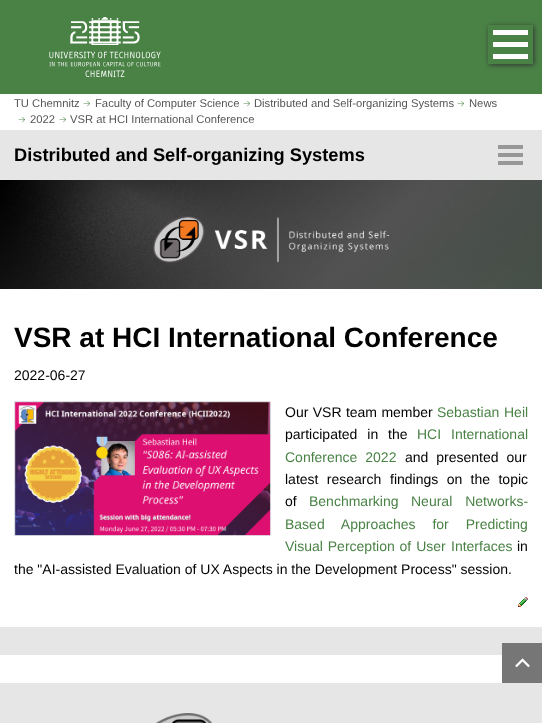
<!DOCTYPE html>
<meta charset="utf-8">
<style>body { margin: 0 } canvas { display: block }</style>
<canvas id="canvas" width="542" height="723"></canvas>
<img id="img1" src="img_01.png" hidden>
<img id="img2" src="img_02.png" hidden>
<img id="img3" src="img_03.png" hidden>
<img id="img4" src="img_04.png" hidden>
<img id="img5" src="img_05.png" hidden>
<img id="img6" src="img_06.png" hidden>
<img id="img7" src="img_07.png" hidden>
<script>
window.onload = function () {
	const canvas = document.getElementById("canvas");
	const ctx = canvas.getContext("2d");
	ctx.miterLimit = 4;
	ctx.fontKerning = "normal";
	function txt(s, x, y) {
		ctx.fillText(s, x, y);
	}
	function fill(x, y, w, h) {
		ctx.fillRect(x, y, w, h);
	}
	function img(id, x, y, w, h) {
		ctx.drawImage(document.getElementById(id), x, y, w, h);
	}

	ctx.fillStyle = "#E6E6E6";
	fill(0, 0, 542, 723);
	ctx.fillStyle = "#4A8246";
	fill(0, 0, 542, 94);
	img("img1", 49, 17, 112, 60);
	ctx.save();
	ctx.beginPath();
	ctx.moveTo(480, 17);
	ctx.lineTo(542, 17);
	ctx.lineTo(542, 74);
	ctx.lineTo(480, 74);
	ctx.closePath();
	ctx.moveTo(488, 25);
	ctx.lineTo(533, 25);
	ctx.lineTo(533, 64);
	ctx.lineTo(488, 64);
	ctx.closePath();
	ctx.clip("evenodd");
	ctx.fillStyle = "#323232";
	ctx.filter = "blur(2.5px)";
	ctx.beginPath();
	ctx.rect(489, 26, 45, 39);
	ctx.fill();
	ctx.filter = "none";
	ctx.restore();
	ctx.fillStyle = "#FFFFFF";
	fill(493, 30, 35, 5);
	fill(493, 42, 35, 5);
	fill(493, 54, 35, 5);
	fill(0, 94, 542, 36);
	img("img2", 83, 101, 7, 6);
	img("img2", 243, 101, 7, 6);
	img("img2", 457, 101, 7, 6);
	img("img2", 18, 117, 7, 6);
	img("img2", 59, 117, 7, 6);
	ctx.fillStyle = "#979797";
	fill(498, 145, 25, 4);
	fill(498, 153, 25, 4);
	fill(498, 161, 25, 4);
	ctx.fillStyle = "#FFFFFF";
	fill(0, 289, 542, 338);
	img("img3", 0, 180, 542, 109);
	img("img4", 14, 401, 257, 135);
	img("img5", 518, 597, 10, 10);
	ctx.fillStyle = "#767676";
	fill(502, 643, 40, 40);
	img("img6", 515, 658, 15, 10);
	img("img7", 155, 713, 58, 10);
	ctx.fillStyle = "#FFFFFF";
	fill(0, 655, 502, 28);
	ctx.font = "11.25px Liberation Sans";
	ctx.fillStyle = "#555555";
	txt("TU Chemnitz", 14, 107);
	txt("Faculty of Computer Science", 95, 107);
	txt("Distributed and Self-organizing Systems", 254, 107);
	txt("News", 469, 107);
	txt("2022", 30, 123);
	txt("VSR at HCI International Conference", 70, 123);
	ctx.font = "bold 18.25px Liberation Sans";
	ctx.fillStyle = "#000000";
	txt("Distributed and Self-organizing Systems", 14, 161);
	ctx.font = "bold 28px Liberation Sans";
	txt("VSR at HCI International Conference", 14, 347);
	ctx.font = "14px Liberation Sans";
	txt("2022-06-27", 14, 380);
	ctx.wordSpacing = "0.5px";
	txt("Our VSR team member", 285, 417);
	ctx.wordSpacing = "0px";
	ctx.fillStyle = "#4A8246";
	txt("Sebastian", 437, 417);
	txt("Heil", 504, 417);
	ctx.wordSpacing = "6px";
	ctx.fillStyle = "#000000";
	txt("participated in the", 285, 439);
	ctx.wordSpacing = "0px";
	ctx.fillStyle = "#4A8246";
	txt("HCI", 417, 439);
	txt("International", 451, 439);
	ctx.wordSpacing = "4px";
	txt("Conference 2022", 285, 462);
	ctx.fillStyle = "#000000";
	txt("and presented our", 405, 462);
	ctx.wordSpacing = "4.5px";
	txt("latest research", 285, 484);
	txt("findings on the topic", 390, 484);
	ctx.wordSpacing = "0px";
	txt("of", 285, 506);
	ctx.fillStyle = "#4A8246";
	txt("Benchmarking", 309, 506);
	ctx.wordSpacing = "9px";
	txt("Neural Networks-", 411, 506);
	ctx.wordSpacing = "13px";
	txt("Based Approaches for Predicting", 285, 529);
	ctx.wordSpacing = "1px";
	txt("Visual Perception of User", 285, 551);
	ctx.wordSpacing = "0px";
	txt("Interfaces", 451, 551);
	ctx.fillStyle = "#000000";
	txt("in", 517, 551);
	txt("the \"AI-assisted Evaluation of UX Aspects in the Development Process\" session.", 14, 574);
};
</script>
